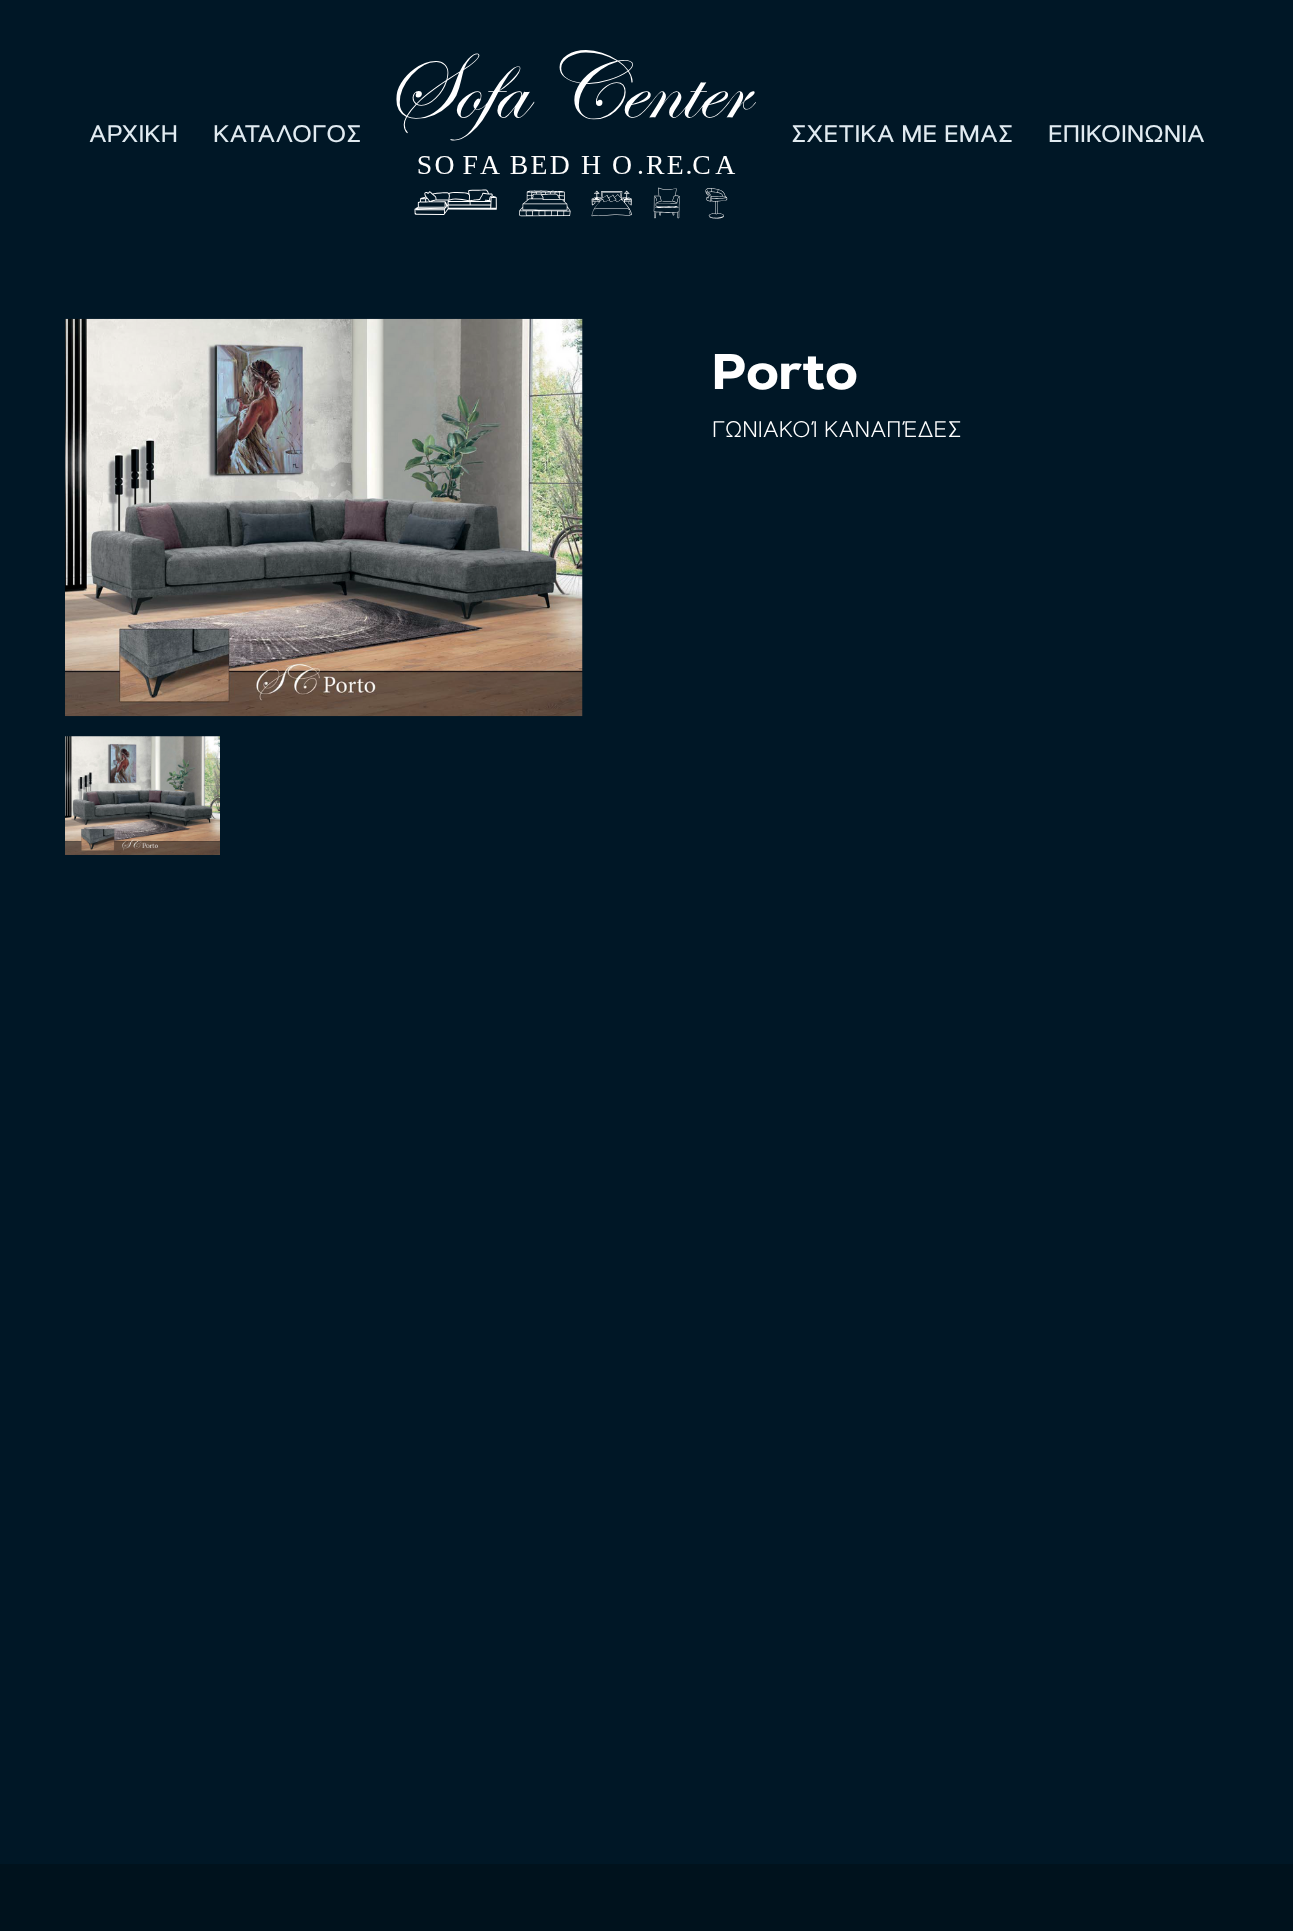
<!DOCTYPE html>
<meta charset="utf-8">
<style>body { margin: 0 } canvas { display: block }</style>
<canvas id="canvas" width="1293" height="1931"></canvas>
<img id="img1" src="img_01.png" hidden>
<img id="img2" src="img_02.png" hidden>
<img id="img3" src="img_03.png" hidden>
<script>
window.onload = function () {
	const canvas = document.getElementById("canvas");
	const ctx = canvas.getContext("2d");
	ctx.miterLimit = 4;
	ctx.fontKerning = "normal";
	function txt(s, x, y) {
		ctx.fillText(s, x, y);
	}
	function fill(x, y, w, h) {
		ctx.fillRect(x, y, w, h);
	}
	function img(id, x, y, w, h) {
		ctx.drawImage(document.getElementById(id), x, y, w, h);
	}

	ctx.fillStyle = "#001726";
	fill(0, 0, 1293, 1931);
	img("img1", 396, 50, 360, 169);
	img("img2", 65, 318, 518, 399);
	img("img3", 65, 736, 155, 119);
	ctx.fillStyle = "#00121D";
	fill(0, 1864, 1293, 67);
	ctx.font = "500 24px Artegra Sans";
	ctx.fillStyle = "#E1EBF1";
	txt("ΑΡΧΙΚΗ", 89, 142);
	txt("ΚΑΤΑΛΟΓΟΣ", 213, 142);
	txt("ΣΧΕΤΙΚΑ ΜΕ ΕΜΑΣ", 791, 142);
	txt("ΕΠΙΚΟΙΝΩΝΙΑ", 1048, 142);
	ctx.font = "bold 50px Artegra Sans";
	ctx.fillStyle = "#FFFFFF";
	txt("Porto", 712, 389);
	ctx.font = "300 22.5px Artegra Sans";
	txt("ΓΩΝΙΑΚΟΊ ΚΑΝΑΠΈΔΕΣ", 712, 437);
};
</script>
